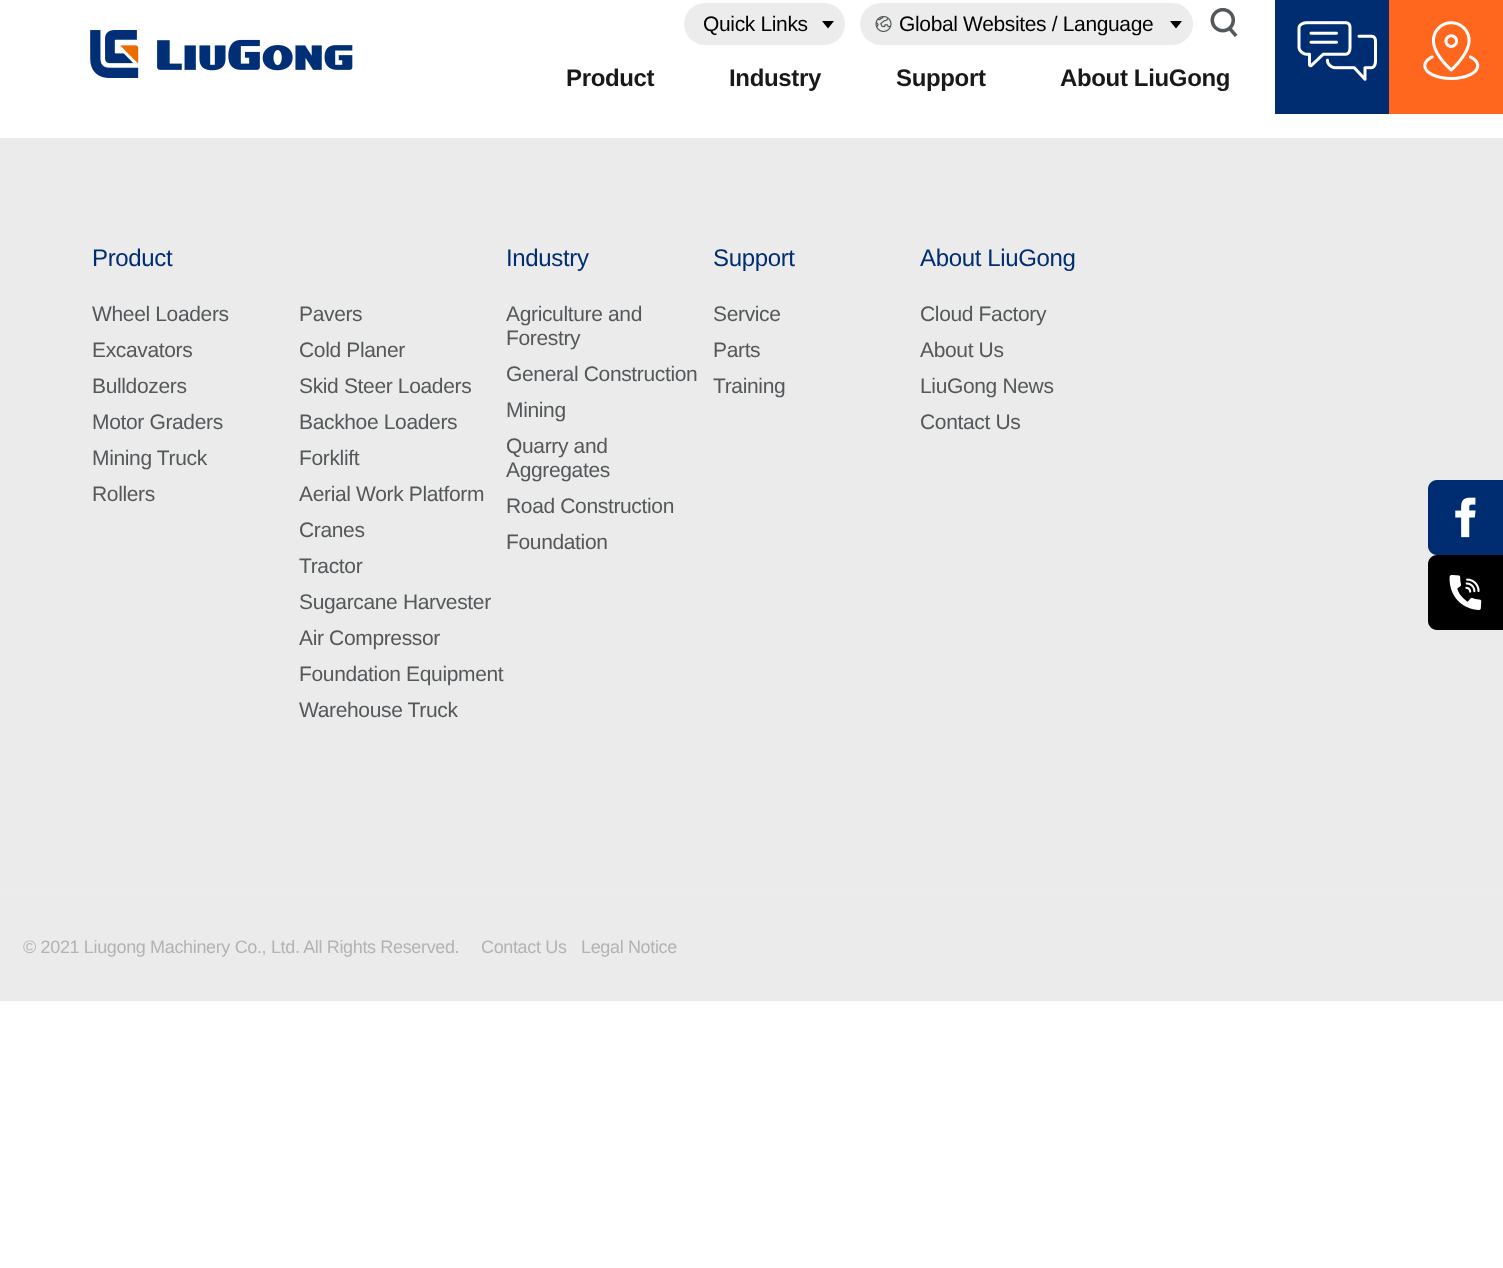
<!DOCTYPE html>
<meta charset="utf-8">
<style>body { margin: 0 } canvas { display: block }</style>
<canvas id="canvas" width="1503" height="1268"></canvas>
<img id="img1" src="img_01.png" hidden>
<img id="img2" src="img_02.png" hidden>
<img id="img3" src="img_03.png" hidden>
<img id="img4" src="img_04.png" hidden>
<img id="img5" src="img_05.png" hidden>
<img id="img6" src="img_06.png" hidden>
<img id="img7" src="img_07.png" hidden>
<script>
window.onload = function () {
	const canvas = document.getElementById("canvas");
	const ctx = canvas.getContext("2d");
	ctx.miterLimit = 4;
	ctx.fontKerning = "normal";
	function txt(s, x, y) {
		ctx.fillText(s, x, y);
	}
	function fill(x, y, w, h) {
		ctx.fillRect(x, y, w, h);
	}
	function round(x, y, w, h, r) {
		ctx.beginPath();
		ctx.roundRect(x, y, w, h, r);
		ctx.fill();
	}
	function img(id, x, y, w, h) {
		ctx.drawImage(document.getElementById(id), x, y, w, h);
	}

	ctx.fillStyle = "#FFFFFF";
	fill(0, 0, 1503, 1268);
	img("img1", 90, 30, 263, 48);
	ctx.fillStyle = "#ECECEC";
	round(684, 3, 161, 42, 21);
	ctx.fillStyle = "#000000";
	ctx.beginPath();
	ctx.moveTo(822, 21);
	ctx.lineTo(834, 21);
	ctx.lineTo(828, 28.5);
	ctx.closePath();
	ctx.fill();
	ctx.fillStyle = "#ECECEC";
	round(860, 3, 333, 42, 21);
	img("img2", 875, 15, 17, 17);
	ctx.fillStyle = "#000000";
	ctx.beginPath();
	ctx.moveTo(1170, 21);
	ctx.lineTo(1182, 21);
	ctx.lineTo(1176, 28.5);
	ctx.closePath();
	ctx.fill();
	img("img3", 1210, 8, 28, 29);
	ctx.fillStyle = "#002D72";
	fill(1275, 0, 114, 114);
	img("img4", 1297, 21, 80, 60);
	ctx.fillStyle = "#FF671F";
	fill(1389, 0, 114, 114);
	img("img5", 1423, 21, 57, 59);
	ctx.fillStyle = "#EBEBEB";
	fill(0, 138, 1503, 863);
	ctx.fillStyle = "#E8EDF1";
	fill(0, 891, 1503, 2);
	img("img6", 1428, 480, 75, 75);
	img("img7", 1428, 555, 75, 75);
	ctx.letterSpacing = "-0.35px";
	ctx.font = "21px Liberation Sans";
	ctx.fillStyle = "#000000";
	txt("Quick Links", 703, 31);
	txt("Global Websites / Language", 899, 31);
	ctx.font = "bold 24px Liberation Sans";
	ctx.fillStyle = "#191919";
	txt("Product", 566, 86);
	txt("Industry", 729, 86);
	txt("Support", 896, 86);
	txt("About LiuGong", 1060, 86);
	ctx.font = "24px Liberation Sans";
	ctx.fillStyle = "#002D72";
	txt("Product", 92, 266);
	ctx.font = "21px Liberation Sans";
	ctx.fillStyle = "#54585A";
	txt("Wheel Loaders", 92, 321);
	txt("Excavators", 92, 357);
	txt("Bulldozers", 92, 393);
	txt("Motor Graders", 92, 429);
	txt("Mining Truck", 92, 465);
	txt("Rollers", 92, 501);
	txt("Pavers", 299, 321);
	txt("Cold Planer", 299, 357);
	txt("Skid Steer Loaders", 299, 393);
	txt("Backhoe Loaders", 299, 429);
	txt("Forklift", 299, 465);
	txt("Aerial Work Platform", 299, 501);
	txt("Cranes", 299, 537);
	txt("Tractor", 299, 573);
	txt("Sugarcane Harvester", 299, 609);
	txt("Air Compressor", 299, 645);
	txt("Foundation Equipment", 299, 681);
	txt("Warehouse Truck", 299, 717);
	ctx.font = "24px Liberation Sans";
	ctx.fillStyle = "#002D72";
	txt("Industry", 506, 266);
	ctx.font = "21px Liberation Sans";
	ctx.fillStyle = "#54585A";
	txt("Agriculture and", 506, 321);
	txt("Forestry", 506, 345);
	txt("General Construction", 506, 381);
	txt("Mining", 506, 417);
	txt("Quarry and", 506, 453);
	txt("Aggregates", 506, 477);
	txt("Road Construction", 506, 513);
	txt("Foundation", 506, 549);
	ctx.font = "24px Liberation Sans";
	ctx.fillStyle = "#002D72";
	txt("Support", 713, 266);
	ctx.font = "21px Liberation Sans";
	ctx.fillStyle = "#54585A";
	txt("Service", 713, 321);
	txt("Parts", 713, 357);
	txt("Training", 713, 393);
	ctx.font = "24px Liberation Sans";
	ctx.fillStyle = "#002D72";
	txt("About LiuGong", 920, 266);
	ctx.font = "21px Liberation Sans";
	ctx.fillStyle = "#54585A";
	txt("Cloud Factory", 920, 321);
	txt("About Us", 920, 357);
	txt("LiuGong News", 920, 393);
	txt("Contact Us", 920, 429);
	ctx.font = "18px Liberation Sans";
	ctx.fillStyle = "#B2B4B2";
	txt("© 2021 Liugong Machinery Co., Ltd. All Rights Reserved.", 23, 953);
	txt("Contact Us", 481, 953);
	txt("Legal Notice", 581, 953);
};
</script>
